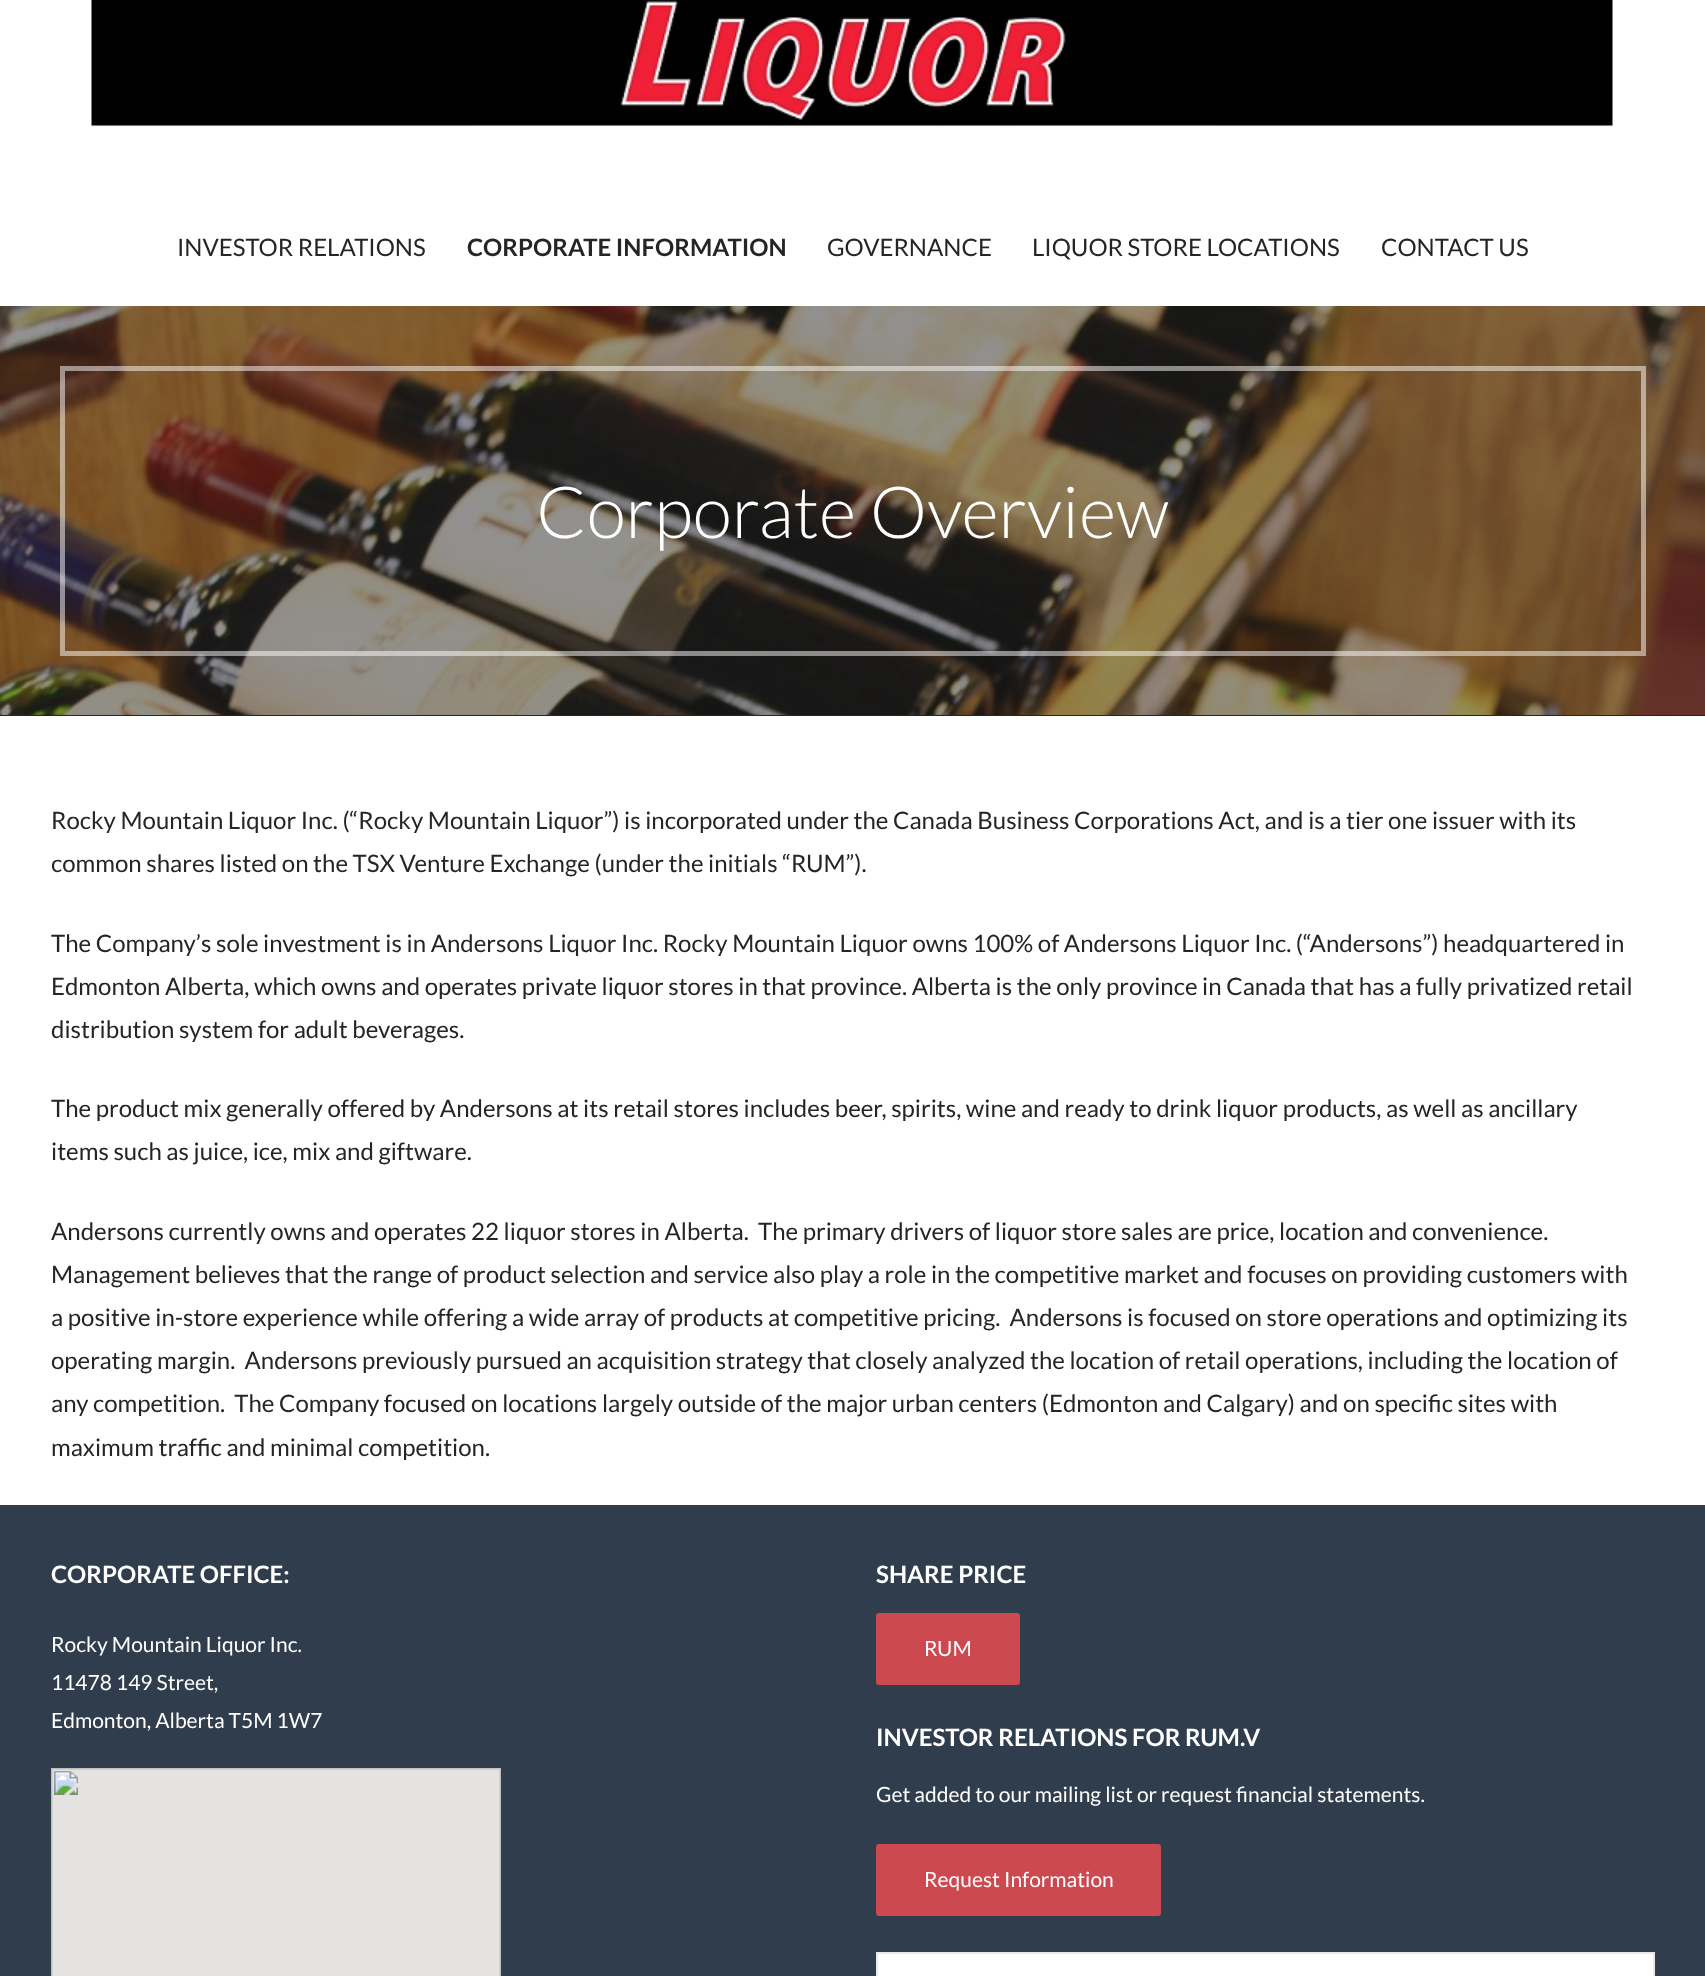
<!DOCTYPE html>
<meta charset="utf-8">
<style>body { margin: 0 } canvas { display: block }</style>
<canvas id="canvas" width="1705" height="1976"></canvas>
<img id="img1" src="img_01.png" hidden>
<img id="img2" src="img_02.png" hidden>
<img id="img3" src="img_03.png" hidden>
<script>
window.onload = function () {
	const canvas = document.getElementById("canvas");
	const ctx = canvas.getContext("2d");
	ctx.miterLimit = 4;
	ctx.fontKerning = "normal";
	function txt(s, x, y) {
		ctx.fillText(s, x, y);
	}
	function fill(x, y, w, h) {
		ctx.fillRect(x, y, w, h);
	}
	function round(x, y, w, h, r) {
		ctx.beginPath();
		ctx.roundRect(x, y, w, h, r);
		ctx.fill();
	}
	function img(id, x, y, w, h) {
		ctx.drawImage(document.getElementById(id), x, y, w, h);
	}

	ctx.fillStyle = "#FFFFFF";
	fill(0, 0, 1705, 1976);
	img("img1", 91, 0, 1522, 127);
	ctx.fillStyle = "#252525";
	fill(0, 715, 1705, 1);
	img("img2", 0, 306, 1705, 409);
	ctx.strokeStyle = "rgba(255, 255, 255, 0.5)";
	ctx.lineWidth = 5;
	ctx.strokeRect(62.5, 368.5, 1581, 285);
	ctx.fillStyle = "#303D4C";
	fill(0, 1505, 1705, 471);
	img("img3", 51, 1768, 450, 208);
	ctx.fillStyle = "#CC494F";
	round(876, 1613, 144, 72, 3);
	round(876, 1844, 285, 72, 3);
	ctx.fillStyle = "#FFFFFF";
	ctx.beginPath();
	ctx.rect(877, 1953, 777, 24);
	ctx.fill();
	ctx.strokeStyle = "#E9E9E9";
	ctx.lineWidth = 2;
	ctx.stroke();
	ctx.font = "24px Lato";
	ctx.fillStyle = "#252525";
	txt("INVESTOR RELATIONS", 177, 256);
	ctx.font = "bold 24px Lato";
	txt("CORPORATE INFORMATION", 467, 256);
	ctx.font = "24px Lato";
	txt("GOVERNANCE", 827, 256);
	txt("LIQUOR STORE LOCATIONS", 1032, 256);
	txt("CONTACT US", 1381, 256);
	ctx.font = "300 72px Lato";
	ctx.fillStyle = "#FFFFFF";
	txt("Corporate Overview", 536, 538);
	ctx.font = "24px Lato";
	ctx.fillStyle = "#252525";
	txt("Rocky Mountain Liquor Inc. (“Rocky Mountain Liquor”) is incorporated under the Canada Business Corporations Act, and is a tier one issuer with its", 51, 829);
	txt("common shares listed on the TSX Venture Exchange (under the initials “RUM”).", 51, 872);
	txt("The Company’s sole investment is in Andersons Liquor Inc. Rocky Mountain Liquor owns 100% of Andersons Liquor Inc. (“Andersons”) headquartered in", 51, 952);
	txt("Edmonton Alberta, which owns and operates private liquor stores in that province. Alberta is the only province in Canada that has a fully privatized retail", 51, 995);
	txt("distribution system for adult beverages.", 51, 1038);
	txt("The product mix generally offered by Andersons at its retail stores includes beer, spirits, wine and ready to drink liquor products, as well as ancillary", 51, 1117);
	txt("items such as juice, ice, mix and giftware.", 51, 1160);
	txt("Andersons currently owns and operates 22 liquor stores in Alberta.  The primary drivers of liquor store sales are price, location and convenience.", 51, 1240);
	txt("Management believes that the range of product selection and service also play a role in the competitive market and focuses on providing customers with", 51, 1283);
	txt("a positive in-store experience while offering a wide array of products at competitive pricing.  Andersons is focused on store operations and optimizing its", 51, 1326);
	txt("operating margin.  Andersons previously pursued an acquisition strategy that closely analyzed the location of retail operations, including the location of", 51, 1369);
	txt("any competition.  The Company focused on locations largely outside of the major urban centers (Edmonton and Calgary) and on specific sites with", 51, 1412);
	txt("maximum traffic and minimal competition.", 51, 1456);
	ctx.font = "bold 24px Lato";
	ctx.fillStyle = "#FFFFFF";
	txt("CORPORATE OFFICE:", 51, 1583);
	ctx.font = "21px Lato";
	txt("Rocky Mountain Liquor Inc.", 51, 1652);
	txt("11478 149 Street,", 51, 1690);
	txt("Edmonton, Alberta T5M 1W7", 51, 1728);
	ctx.font = "bold 24px Lato";
	txt("SHARE PRICE", 876, 1583);
	ctx.font = "21px Lato";
	txt("RUM", 924, 1656);
	ctx.font = "bold 24px Lato";
	txt("INVESTOR RELATIONS FOR RUM.V", 876, 1746);
	ctx.font = "21px Lato";
	txt("Get added to our mailing list or request financial statements.", 876, 1802);
	txt("Request Information", 924, 1887);
};
</script>
